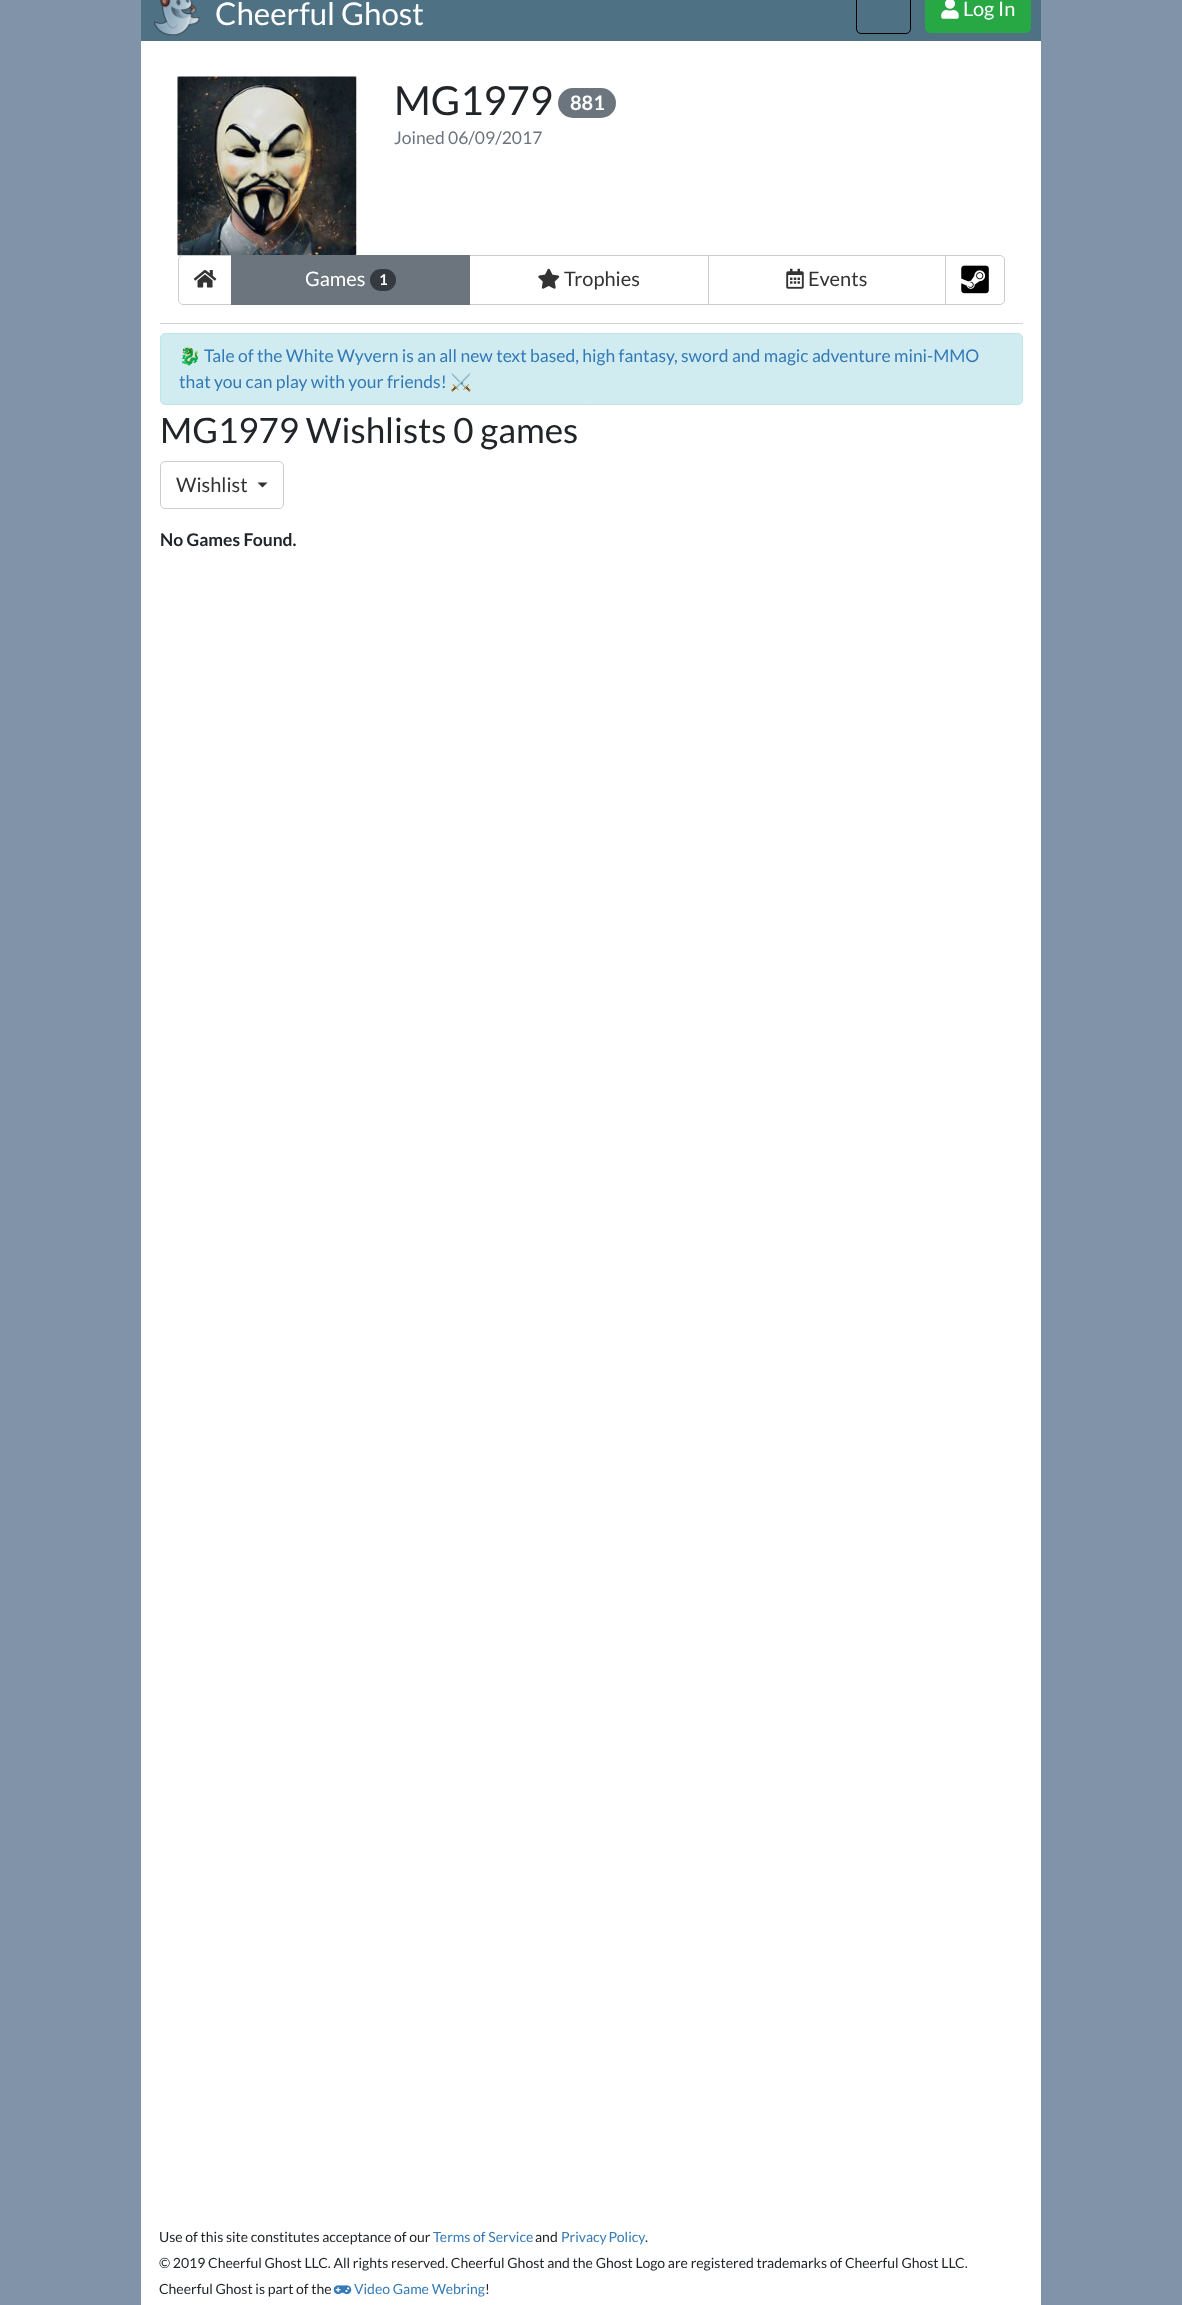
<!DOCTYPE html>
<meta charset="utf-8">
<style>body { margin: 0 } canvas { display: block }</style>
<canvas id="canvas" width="1182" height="2305"></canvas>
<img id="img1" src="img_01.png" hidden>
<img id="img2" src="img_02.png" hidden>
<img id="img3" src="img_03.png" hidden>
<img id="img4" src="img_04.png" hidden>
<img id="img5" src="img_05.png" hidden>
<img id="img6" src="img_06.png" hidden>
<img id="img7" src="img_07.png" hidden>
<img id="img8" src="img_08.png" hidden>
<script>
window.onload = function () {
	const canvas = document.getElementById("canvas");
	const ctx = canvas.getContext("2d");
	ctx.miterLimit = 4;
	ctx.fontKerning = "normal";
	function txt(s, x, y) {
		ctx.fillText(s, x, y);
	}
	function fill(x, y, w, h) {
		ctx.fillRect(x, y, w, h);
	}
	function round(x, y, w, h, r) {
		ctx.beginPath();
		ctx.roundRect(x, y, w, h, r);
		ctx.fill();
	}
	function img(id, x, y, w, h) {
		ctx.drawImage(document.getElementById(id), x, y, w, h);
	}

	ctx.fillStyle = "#8193A8";
	fill(0, 0, 1182, 2305);
	ctx.fillStyle = "#4E7184";
	fill(141, 0, 900, 41);
	img("img1", 154, 0, 46, 36);
	ctx.beginPath();
	ctx.roundRect(856.5, -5.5, 54, 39, 4.5);
	ctx.strokeStyle = "#000000";
	ctx.stroke();
	ctx.fillStyle = "#28A745";
	ctx.beginPath();
	ctx.roundRect(925.5, -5.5, 105, 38, 4.5);
	ctx.fill();
	ctx.strokeStyle = "#28A745";
	ctx.stroke();
	img("img2", 941, 0, 18, 19);
	ctx.fillStyle = "#FFFFFF";
	fill(141, 41, 900, 2264);
	ctx.fillStyle = "#D3D3D3";
	fill(160, 323, 863, 1);
	img("img3", 177, 76, 180, 180);
	ctx.fillStyle = "#6C757D";
	round(558, 88, 58, 30, 15);
	ctx.fillStyle = "#FFFFFF";
	ctx.beginPath();
	ctx.roundRect(178.5, 255.5, 54, 49, [4.5, 0, 0, 4.5]);
	ctx.fill();
	ctx.strokeStyle = "#CCCCCC";
	ctx.stroke();
	img("img4", 193, 270, 24, 18);
	ctx.strokeRect(469.5, 255.5, 239, 49);
	ctx.fillStyle = "#6C757D";
	fill(231, 255, 239, 50);
	ctx.fillStyle = "#343A40";
	round(370, 269, 26, 22, 11);
	img("img5", 538, 268, 22, 21);
	ctx.strokeRect(708.5, 255.5, 237, 49);
	img("img6", 786, 268, 18, 21);
	ctx.fillStyle = "#FFFFFF";
	ctx.beginPath();
	ctx.roundRect(945.5, 255.5, 59, 49, [0, 4.5, 4.5, 0]);
	ctx.fill();
	ctx.stroke();
	img("img7", 961, 265, 28, 29);
	ctx.fillStyle = "#D1ECF1";
	ctx.beginPath();
	ctx.roundRect(160.5, 333.5, 862, 71, 4.5);
	ctx.fill();
	ctx.strokeStyle = "#BEE5EB";
	ctx.stroke();
	ctx.beginPath();
	ctx.roundRect(160.5, 461.5, 123, 47, 4.5);
	ctx.strokeStyle = "#CCCCCC";
	ctx.stroke();
	ctx.fillStyle = "#333333";
	ctx.beginPath();
	ctx.moveTo(257.5, 482.5);
	ctx.lineTo(267.5, 482.5);
	ctx.lineTo(262.5, 487.5);
	ctx.closePath();
	ctx.fill();
	img("img8", 333, 2285, 19, 10);
	ctx.font = "31.25px Lato";
	ctx.fillStyle = "#FFFFFF";
	txt("Cheerful Ghost", 215, 25);
	ctx.font = "20px Lato";
	txt("Log In", 963, 16);
	ctx.font = "40px Lato";
	ctx.fillStyle = "#212529";
	txt("MG1979", 394, 115);
	ctx.font = "bold 20px Lato";
	ctx.fillStyle = "#FFFFFF";
	txt("881", 570, 110);
	ctx.font = "17.5px Lato";
	ctx.fillStyle = "#6C757D";
	txt("Joined 06/09/2017", 394, 144);
	ctx.font = "20px Lato";
	ctx.fillStyle = "#FFFFFF";
	txt("Games", 305, 286);
	ctx.font = "bold 15px Lato";
	txt("1", 379, 285);
	ctx.font = "20px Lato";
	ctx.fillStyle = "#333333";
	txt("Trophies", 564, 286);
	txt("Events", 808, 286);
	ctx.font = "17.5px Noto Color Emoji";
	ctx.fillStyle = "#337AB7";
	txt("🐉", 179, 362);
	ctx.font = "17.5px Lato";
	txt("Tale of the White Wyvern is an all new text based, high fantasy, sword and magic adventure mini-MMO", 204, 362);
	txt("that you can play with your friends!", 179, 388);
	ctx.font = "17.5px Noto Color Emoji";
	txt("⚔️", 450, 388);
	ctx.font = "35px Lato";
	ctx.fillStyle = "#212529";
	txt("MG1979 Wishlists 0 games", 160, 443);
	ctx.font = "20px Lato";
	ctx.fillStyle = "#333333";
	txt("Wishlist", 176, 492);
	ctx.font = "bold 17.5px Lato";
	ctx.fillStyle = "#212529";
	txt("No Games Found.", 160, 546);
	ctx.font = "14px Lato";
	txt("Use of this site constitutes acceptance of our", 159, 2242);
	ctx.fillStyle = "#337AB7";
	txt("Terms of Service", 433, 2242);
	ctx.fillStyle = "#212529";
	txt("and", 535, 2242);
	ctx.wordSpacing = "-1px";
	ctx.fillStyle = "#337AB7";
	txt("Privacy Policy", 561, 2242);
	ctx.wordSpacing = "0px";
	ctx.fillStyle = "#212529";
	txt(".", 645, 2242);
	txt("© 2019 Cheerful Ghost LLC. All rights reserved. Cheerful Ghost and the Ghost Logo are registered trademarks of Cheerful Ghost LLC.", 159, 2268);
	txt("Cheerful Ghost is part of the", 159, 2294);
	ctx.fillStyle = "#337AB7";
	txt("Video Game Webring", 354, 2294);
	ctx.fillStyle = "#212529";
	txt("!", 485, 2294);
};
</script>
